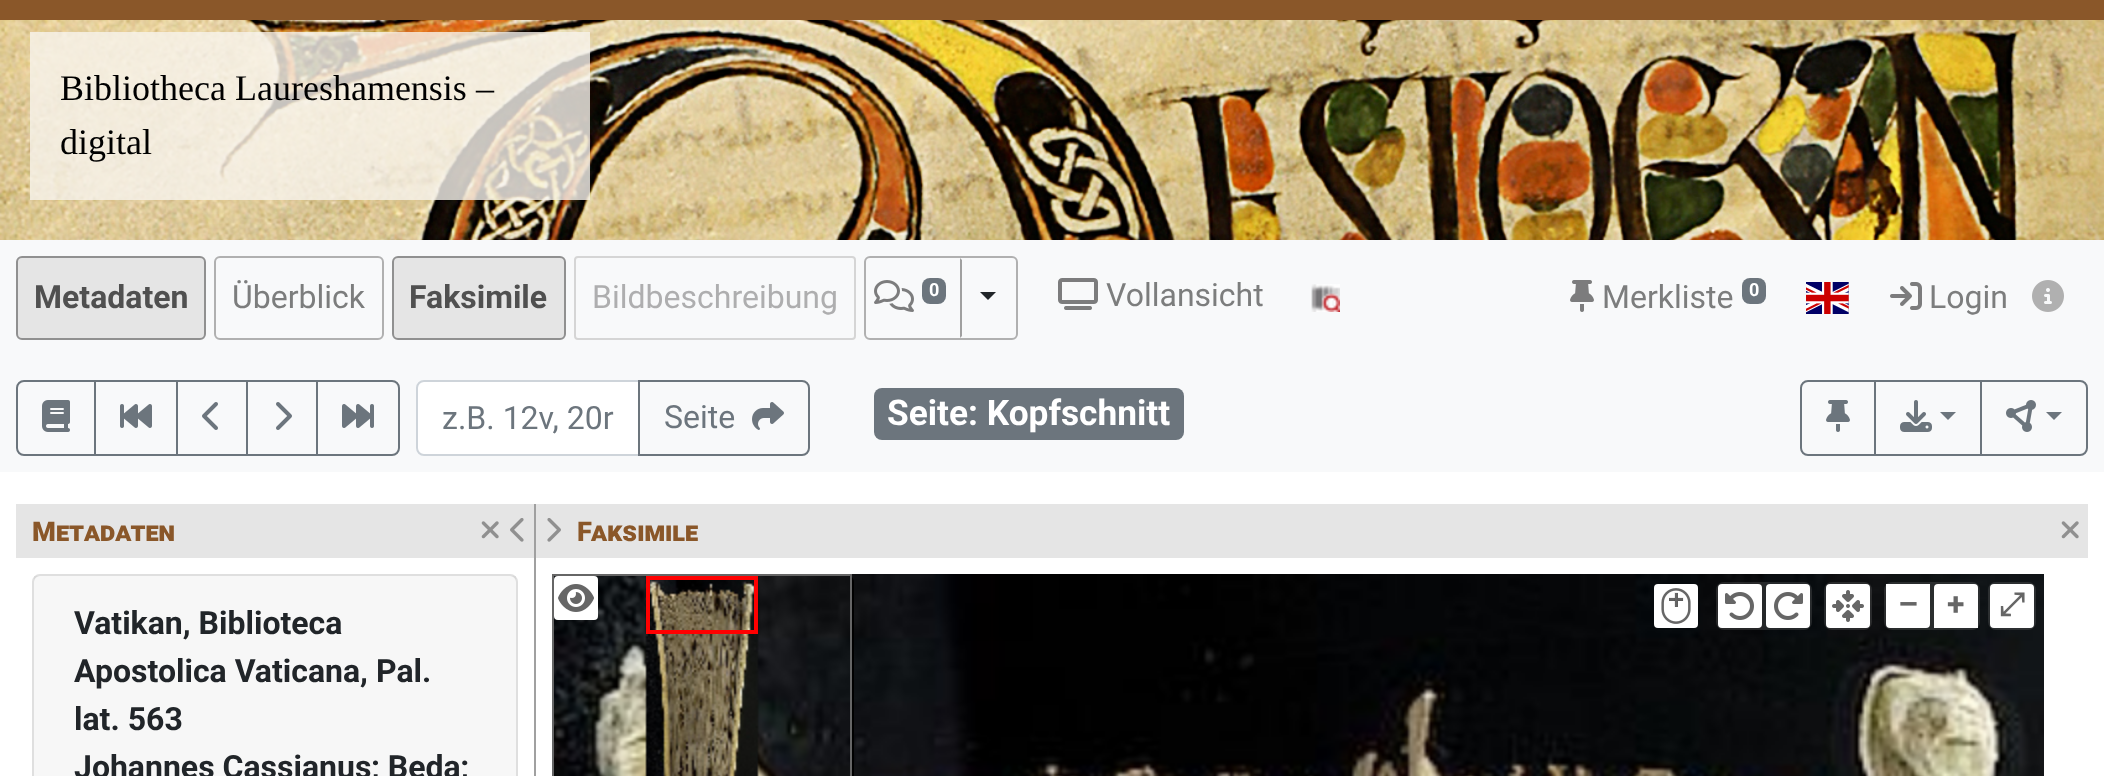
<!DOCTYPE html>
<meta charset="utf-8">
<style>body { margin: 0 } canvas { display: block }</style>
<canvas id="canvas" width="2104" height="776"></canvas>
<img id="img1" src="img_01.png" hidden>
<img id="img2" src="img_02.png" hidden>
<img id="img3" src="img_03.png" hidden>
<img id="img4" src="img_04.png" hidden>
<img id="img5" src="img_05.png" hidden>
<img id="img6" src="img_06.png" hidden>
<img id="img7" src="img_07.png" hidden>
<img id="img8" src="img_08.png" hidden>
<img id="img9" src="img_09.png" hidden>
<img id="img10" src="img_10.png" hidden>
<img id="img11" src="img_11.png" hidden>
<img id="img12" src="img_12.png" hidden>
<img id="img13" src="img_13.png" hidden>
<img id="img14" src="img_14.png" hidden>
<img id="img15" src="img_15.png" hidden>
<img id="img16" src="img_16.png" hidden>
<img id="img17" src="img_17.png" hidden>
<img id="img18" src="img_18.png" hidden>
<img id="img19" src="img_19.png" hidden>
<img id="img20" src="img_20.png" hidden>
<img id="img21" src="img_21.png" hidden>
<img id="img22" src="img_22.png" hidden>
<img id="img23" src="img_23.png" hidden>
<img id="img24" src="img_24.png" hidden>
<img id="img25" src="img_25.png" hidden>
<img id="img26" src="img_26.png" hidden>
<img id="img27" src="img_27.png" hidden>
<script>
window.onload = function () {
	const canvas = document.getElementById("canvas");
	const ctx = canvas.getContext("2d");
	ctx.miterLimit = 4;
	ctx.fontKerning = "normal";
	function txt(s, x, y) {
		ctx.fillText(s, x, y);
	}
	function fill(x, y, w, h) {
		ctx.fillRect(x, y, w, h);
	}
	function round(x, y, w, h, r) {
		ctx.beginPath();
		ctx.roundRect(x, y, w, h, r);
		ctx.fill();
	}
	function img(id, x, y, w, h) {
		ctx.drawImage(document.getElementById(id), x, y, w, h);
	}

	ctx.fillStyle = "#FFFFFF";
	fill(0, 0, 2104, 776);
	ctx.fillStyle = "#8A5729";
	fill(0, 0, 2104, 20);
	img("img1", 0, 20, 2104, 220);
	ctx.fillStyle = "rgba(247, 244, 237, 0.8)";
	fill(30, 32, 560, 168);
	ctx.fillStyle = "#F8F9FA";
	fill(0, 240, 2104, 232);
	ctx.fillStyle = "#E5E5E5";
	ctx.beginPath();
	ctx.roundRect(17, 257, 188, 82, 5);
	ctx.fill();
	ctx.strokeStyle = "#909090";
	ctx.lineWidth = 2;
	ctx.stroke();
	ctx.beginPath();
	ctx.roundRect(215, 257, 168, 82, 5);
	ctx.strokeStyle = "#B0B0B0";
	ctx.stroke();
	ctx.beginPath();
	ctx.roundRect(393, 257, 172, 82, 5);
	ctx.fill();
	ctx.strokeStyle = "#909090";
	ctx.stroke();
	ctx.beginPath();
	ctx.roundRect(575, 257, 280, 82, 3);
	ctx.strokeStyle = "#D5D5D5";
	ctx.stroke();
	ctx.beginPath();
	ctx.roundRect(865, 257, 152, 82, 5);
	ctx.strokeStyle = "#B0B0B0";
	ctx.stroke();
	img("img2", 874, 280, 40, 32);
	ctx.fillStyle = "#6C757D";
	round(922, 278, 24, 26, 8);
	ctx.fillStyle = "#A0A0A0";
	ctx.beginPath();
	ctx.moveTo(962, 260);
	ctx.lineTo(960, 258);
	ctx.lineTo(960, 338);
	ctx.lineTo(962, 336);
	ctx.closePath();
	ctx.fill();
	ctx.fillStyle = "#212529";
	ctx.beginPath();
	ctx.moveTo(980, 292);
	ctx.lineTo(996, 292);
	ctx.lineTo(988, 300);
	ctx.closePath();
	ctx.fill();
	img("img3", 1058, 278, 40, 32);
	img("img4", 1311, 284, 29, 28);
	img("img5", 1570, 280, 24, 32);
	ctx.fillStyle = "#6C757D";
	round(1742, 278, 24, 26, 8);
	img("img6", 1806, 282, 43, 32);
	img("img7", 1890, 282, 32, 28);
	img("img8", 2032, 280, 32, 32);
	ctx.beginPath();
	ctx.roundRect(17, 381, 78, 74, [7, 0, 0, 7]);
	ctx.strokeStyle = "#6C757D";
	ctx.stroke();
	img("img9", 42, 400, 28, 32);
	ctx.strokeRect(95, 381, 82, 74);
	img("img10", 120, 404, 32, 24);
	ctx.strokeRect(177, 381, 70, 74);
	img("img11", 202, 402, 16, 28);
	ctx.strokeRect(247, 381, 70, 74);
	img("img12", 276, 402, 16, 28);
	ctx.beginPath();
	ctx.roundRect(317, 381, 82, 74, [0, 7, 7, 0]);
	ctx.stroke();
	img("img13", 342, 404, 32, 24);
	ctx.fillStyle = "#FFFFFF";
	ctx.beginPath();
	ctx.roundRect(417, 381, 222, 74, [7, 0, 0, 7]);
	ctx.fill();
	ctx.strokeStyle = "#CED4DA";
	ctx.stroke();
	ctx.beginPath();
	ctx.roundRect(639, 381, 170, 74, [0, 7, 7, 0]);
	ctx.strokeStyle = "#6C757D";
	ctx.stroke();
	img("img14", 752, 402, 32, 28);
	ctx.fillStyle = "#6C757D";
	round(874, 388, 310, 52, 8);
	ctx.beginPath();
	ctx.roundRect(1801, 381, 74, 74, [7, 0, 0, 7]);
	ctx.stroke();
	img("img15", 1826, 400, 24, 32);
	ctx.strokeRect(1875, 381, 106, 74);
	img("img16", 1900, 400, 32, 32);
	ctx.beginPath();
	ctx.moveTo(1940, 412);
	ctx.lineTo(1956, 412);
	ctx.lineTo(1948, 420);
	ctx.closePath();
	ctx.fill();
	ctx.beginPath();
	ctx.roundRect(1981, 381, 106, 74, [0, 7, 7, 0]);
	ctx.stroke();
	img("img17", 2006, 400, 30, 32);
	ctx.beginPath();
	ctx.moveTo(2046, 412);
	ctx.lineTo(2062, 412);
	ctx.lineTo(2054, 420);
	ctx.closePath();
	ctx.fill();
	ctx.fillStyle = "#E5E5E5";
	fill(16, 504, 518, 54);
	img("img18", 481, 521, 18, 18);
	img("img19", 510, 518, 14, 24);
	ctx.beginPath();
	ctx.roundRect(33, 575, 484, 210, 7);
	ctx.strokeStyle = "#DFDFDF";
	ctx.stroke();
	ctx.fillStyle = "rgba(0, 0, 0, 0.03)";
	fill(34, 576, 482, 200);
	ctx.fillStyle = "#A0A0A0";
	fill(534, 504, 2, 272);
	ctx.fillStyle = "#E5E5E5";
	fill(536, 504, 1552, 54);
	img("img20", 547, 518, 14, 24);
	img("img18", 2061, 521, 18, 18);
	img("img21", 554, 574, 1490, 202);
	ctx.fillStyle = "#000000";
	ctx.beginPath();
	ctx.moveTo(560, 574);
	ctx.lineTo(846, 574);
	ctx.bezierCurveTo(850, 574, 854, 578, 854, 582);
	ctx.lineTo(854, 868);
	ctx.bezierCurveTo(854, 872, 850, 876, 846, 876);
	ctx.lineTo(560, 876);
	ctx.bezierCurveTo(556, 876, 552, 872, 552, 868);
	ctx.lineTo(552, 582);
	ctx.bezierCurveTo(552, 578, 556, 574, 560, 574);
	ctx.closePath();
	ctx.moveTo(560, 574);
	ctx.lineTo(846, 574);
	ctx.bezierCurveTo(849, 574, 852, 578, 852, 582);
	ctx.lineTo(852, 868);
	ctx.bezierCurveTo(852, 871, 849, 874, 846, 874);
	ctx.lineTo(560, 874);
	ctx.bezierCurveTo(556, 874, 552, 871, 552, 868);
	ctx.lineTo(552, 582);
	ctx.bezierCurveTo(552, 578, 556, 574, 560, 574);
	ctx.closePath();
	ctx.fill("evenodd");
	ctx.strokeStyle = "#666666";
	ctx.strokeRect(553, 575, 298, 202);
	img("img22", 645, 576, 114, 200);
	ctx.strokeStyle = "#FF0000";
	ctx.lineWidth = 4;
	ctx.strokeRect(648, 578, 108, 54);
	ctx.fillStyle = "#FFFFFF";
	round(554, 576, 44, 44, 4);
	img("img23", 558, 584, 36, 28);
	round(1654, 584, 44, 44, 4);
	img("img24", 1661, 588, 30, 36);
	ctx.fillStyle = "rgba(128, 128, 128, 0.25)";
	round(1716, 582, 96, 48, 8);
	ctx.fillStyle = "#FFFFFF";
	round(1718, 584, 44, 44, 4);
	img("img25", 1725, 592, 29, 28);
	round(1766, 584, 44, 44, 4);
	img("img26", 1774, 592, 29, 28);
	ctx.fillStyle = "rgba(128, 128, 128, 0.25)";
	round(1824, 582, 48, 48, 8);
	ctx.fillStyle = "#FFFFFF";
	round(1826, 584, 44, 44, 4);
	img("img27", 1832, 590, 32, 32);
	ctx.fillStyle = "rgba(128, 128, 128, 0.25)";
	round(1884, 582, 96, 48, 8);
	ctx.fillStyle = "#FFFFFF";
	ctx.beginPath();
	ctx.roundRect(1886, 584, 44, 44, [0, 0, 4, 4]);
	ctx.fill();
	ctx.beginPath();
	ctx.roundRect(1934, 584, 44, 44, [4, 4, 0, 0]);
	ctx.fill();
	ctx.fillStyle = "rgba(128, 128, 128, 0.25)";
	round(1988, 582, 48, 48, 8);
	ctx.fillStyle = "#FFFFFF";
	round(1990, 584, 44, 44, 4);
	ctx.font = "36px Liberation Serif";
	ctx.fillStyle = "#000000";
	txt("Bibliotheca Laureshamensis –", 60, 100);
	txt("digital", 60, 154);
	ctx.font = "bold 32px Roboto";
	ctx.fillStyle = "#505050";
	txt("Metadaten", 34, 308);
	ctx.font = "32px Roboto";
	ctx.fillStyle = "#7C7D7D";
	txt("Überblick", 232, 308);
	ctx.font = "bold 32px Roboto";
	ctx.fillStyle = "#505050";
	txt("Faksimile", 409, 308);
	ctx.font = "32px Roboto";
	ctx.fillStyle = "#AEAEAF";
	txt("Bildbeschreibung", 592, 308);
	ctx.font = "bold 18px Roboto";
	ctx.fillStyle = "#FFFFFF";
	txt("0", 929, 296);
	ctx.font = "32px Roboto";
	ctx.fillStyle = "#7C7D7D";
	txt("Vollansicht", 1106, 306);
	txt("Merkliste", 1602, 308);
	ctx.font = "bold 18px Roboto";
	ctx.fillStyle = "#FFFFFF";
	txt("0", 1749, 296);
	ctx.font = "32px Roboto";
	ctx.fillStyle = "#7C7D7D";
	txt("Login", 1929, 308);
	ctx.fillStyle = "#6C757D";
	txt("z.B. 12v, 20r", 442, 429);
	txt("Seite", 664, 428);
	ctx.font = "bold 35.25px Roboto";
	ctx.fillStyle = "#FFFFFF";
	txt("Seite: Kopfschnitt", 887, 425);
	ctx.font = "900 27.25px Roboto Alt";
	ctx.fillStyle = "#8A5729";
	txt("Metadaten", 32, 541);
	ctx.font = "bold 32px Roboto";
	ctx.fillStyle = "#212529";
	txt("Vatikan, Biblioteca", 74, 634);
	txt("Apostolica Vaticana, Pal.", 74, 682);
	txt("lat. 563", 74, 730);
	txt("Johannes Cassianus; Beda;", 74, 778);
	ctx.font = "900 27.25px Roboto Alt";
	ctx.fillStyle = "#8A5729";
	txt("Faksimile", 577, 541);
	ctx.font = "bold 32px Roboto";
	ctx.fillStyle = "#666666";
	txt("–", 1898, 615);
	txt("+", 1947, 615);
	ctx.font = "bold 32px FreeSerif";
	txt("⤢", 1999, 615);
};
</script>
